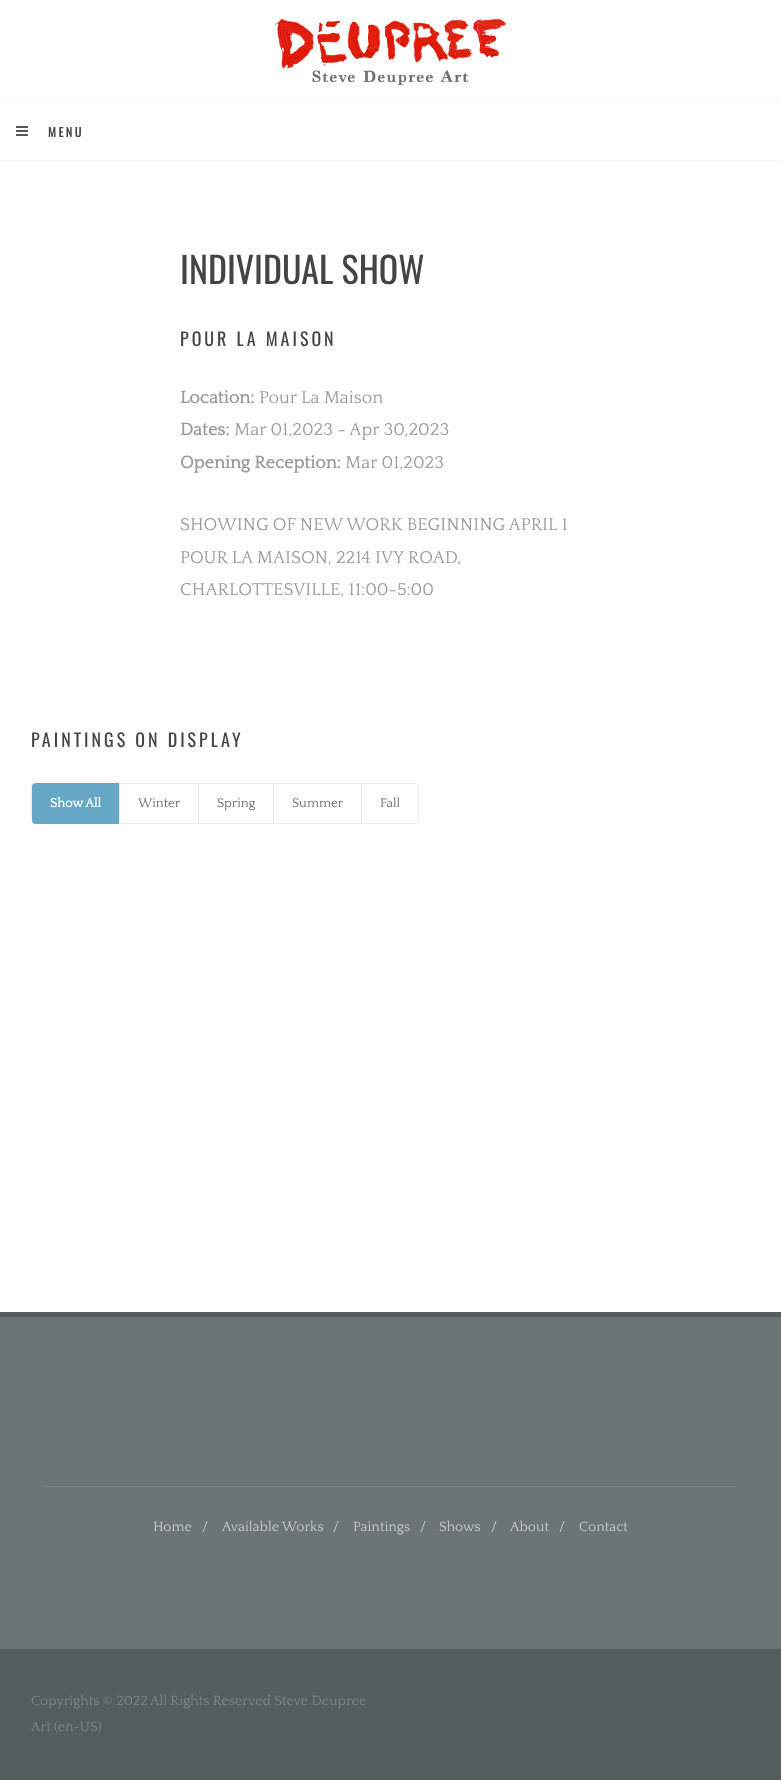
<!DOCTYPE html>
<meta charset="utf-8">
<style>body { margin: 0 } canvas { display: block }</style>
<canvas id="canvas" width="781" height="1780"></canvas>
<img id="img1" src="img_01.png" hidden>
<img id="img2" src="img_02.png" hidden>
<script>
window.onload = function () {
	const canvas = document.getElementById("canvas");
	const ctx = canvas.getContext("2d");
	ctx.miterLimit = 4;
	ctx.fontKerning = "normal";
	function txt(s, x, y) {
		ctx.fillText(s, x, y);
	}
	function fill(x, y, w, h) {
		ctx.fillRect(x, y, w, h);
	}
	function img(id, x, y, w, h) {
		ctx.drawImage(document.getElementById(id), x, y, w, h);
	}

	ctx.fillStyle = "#FFFFFF";
	fill(0, 0, 781, 1780);
	ctx.fillStyle = "#F5F5F5";
	fill(0, 160, 781, 1);
	img("img1", 275, 18, 231, 68);
	fill(0, 100, 781, 1);
	img("img2", 16, 126, 12, 10);
	ctx.beginPath();
	ctx.roundRect(31.5, 783.5, 387, 40, 3.5);
	ctx.strokeStyle = "#EDEDED";
	ctx.stroke();
	ctx.fillStyle = "#66A7C5";
	ctx.beginPath();
	ctx.roundRect(32, 783, 87, 41, [4, 0, 0, 4]);
	ctx.fill();
	ctx.fillStyle = "#EDEDED";
	fill(119, 784, 1, 39);
	fill(198, 784, 1, 39);
	fill(273, 784, 1, 39);
	fill(361, 784, 1, 39);
	ctx.fillStyle = "#6C7476";
	fill(0, 1317, 781, 332);
	ctx.fillStyle = "#565D5E";
	fill(0, 1312, 781, 5);
	ctx.fillStyle = "#7B8284";
	fill(46, 1486, 690, 1);
	ctx.fillStyle = "#565D5E";
	fill(0, 1649, 781, 131);
	ctx.letterSpacing = "2.5px";
	ctx.font = "bold 12px Oswald";
	ctx.fillStyle = "#444444";
	txt("MENU", 48, 137);
	ctx.letterSpacing = "0px";
	ctx.font = "36px Oswald";
	txt("INDIVIDUAL SHOW", 180, 284);
	ctx.letterSpacing = "3px";
	ctx.font = "18px Oswald";
	txt("POUR LA MAISON", 180, 346);
	ctx.letterSpacing = "0px";
	ctx.font = "bold 18px Quattrocento";
	ctx.fillStyle = "#999999";
	txt("Location:", 180, 403);
	ctx.font = "18px Quattrocento";
	txt("Pour La Maison", 259, 403);
	ctx.font = "bold 18px Quattrocento";
	txt("Dates:", 180, 435);
	ctx.font = "18px Quattrocento";
	txt("Mar 01,2023 - Apr 30,2023", 234, 435);
	ctx.font = "bold 18px Quattrocento";
	txt("Opening Reception:", 180, 468);
	ctx.font = "18px Quattrocento";
	txt("Mar 01,2023", 345, 468);
	txt("SHOWING OF NEW WORK BEGINNING APRIL 1", 180, 530);
	txt("POUR LA MAISON, 2214 IVY ROAD,", 180, 563);
	txt("CHARLOTTESVILLE, 11:00-5:00", 180, 595);
	ctx.letterSpacing = "3px";
	ctx.font = "18px Oswald";
	ctx.fillStyle = "#444444";
	txt("PAINTINGS ON DISPLAY", 31, 747);
	ctx.letterSpacing = "0px";
	ctx.font = "bold 13px Quattrocento";
	ctx.fillStyle = "#FFFFFF";
	txt("Show All", 50, 807);
	ctx.font = "13px Quattrocento";
	ctx.fillStyle = "#666666";
	txt("Winter", 138, 807);
	txt("Spring", 217, 807);
	txt("Summer", 292, 807);
	txt("Fall", 380, 807);
	ctx.font = "14px Quattrocento";
	ctx.fillStyle = "#CCCCCC";
	txt("Home", 153, 1531);
	txt("/", 202, 1531);
	txt("Available Works", 222, 1531);
	txt("/", 333, 1531);
	txt("Paintings", 353, 1531);
	txt("/", 420, 1531);
	txt("Shows", 439, 1531);
	txt("/", 491, 1531);
	txt("About", 510, 1531);
	txt("/", 559, 1531);
	txt("Contact", 579, 1531);
	ctx.fillStyle = "#808686";
	txt("Copyrights © 2022", 31, 1705);
	txt("All Rights Reserved Steve Deupree", 150, 1705);
	txt("Art (en-US)", 31, 1731);
};
</script>
